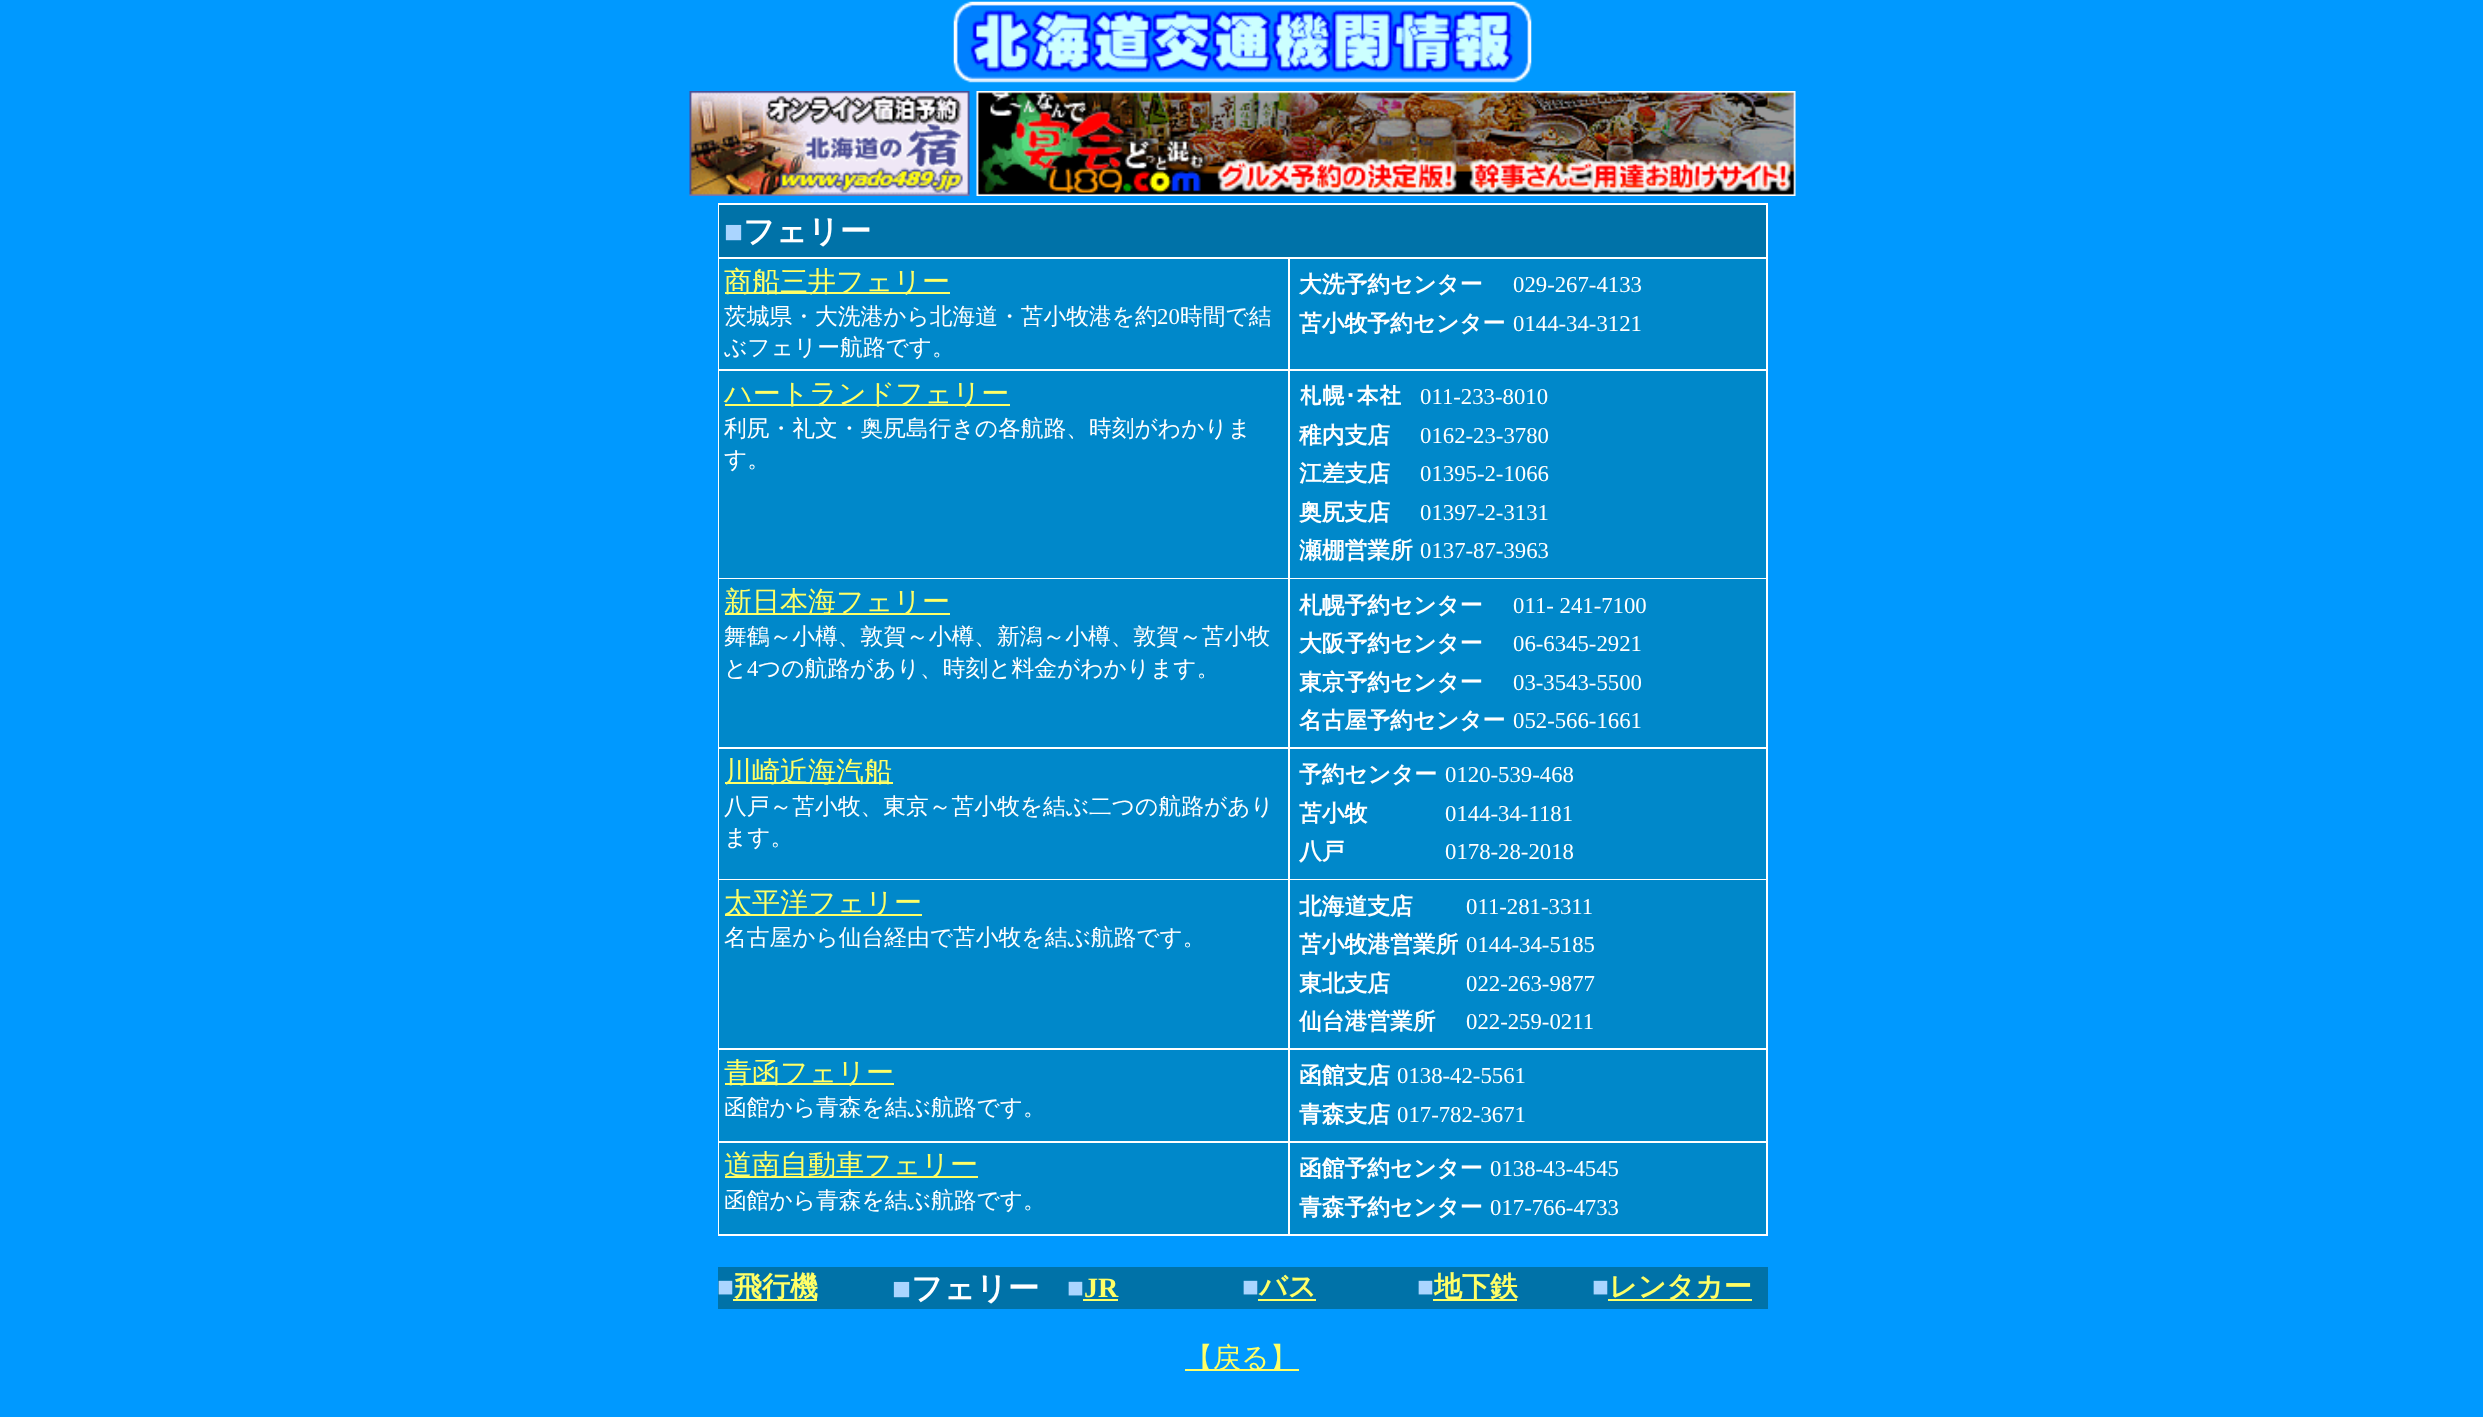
<!DOCTYPE html>
<meta charset="utf-8">
<style>body { margin: 0 } canvas { display: block }</style>
<canvas id="canvas" width="2483" height="1417"></canvas>
<img id="img1" src="img_01.png" hidden>
<img id="img2" src="img_02.png" hidden>
<img id="img3" src="img_03.png" hidden>
<script>
window.onload = function () {
	const canvas = document.getElementById("canvas");
	const ctx = canvas.getContext("2d");
	ctx.miterLimit = 4;
	ctx.fontKerning = "normal";
	function txt(s, x, y) {
		ctx.fillText(s, x, y);
	}
	function fill(x, y, w, h) {
		ctx.fillRect(x, y, w, h);
	}
	function img(id, x, y, w, h) {
		ctx.drawImage(document.getElementById(id), x, y, w, h);
	}

	ctx.fillStyle = "#0099FF";
	fill(0, 0, 2483, 1417);
	img("img1", 953, 1, 579, 82);
	img("img2", 689, 91, 281, 105);
	img("img3", 976, 91, 820, 105);
	ctx.fillStyle = "#FFFFFF";
	fill(718, 203, 1050, 1033);
	ctx.fillStyle = "#0072A8";
	fill(719, 205, 1047, 52);
	ctx.fillStyle = "#0088CA";
	fill(719, 259, 569, 110);
	ctx.fillStyle = "#FFFF66";
	fill(725, 292, 225, 2);
	ctx.fillStyle = "#0088CA";
	fill(1290, 259, 476, 110);
	fill(719, 371, 569, 207);
	ctx.fillStyle = "#FFFF66";
	fill(725, 404, 285, 2);
	ctx.fillStyle = "#0088CA";
	fill(1290, 371, 476, 207);
	fill(719, 579, 569, 168);
	ctx.fillStyle = "#FFFF66";
	fill(725, 613, 225, 2);
	ctx.fillStyle = "#0088CA";
	fill(1290, 579, 476, 168);
	fill(719, 749, 569, 130);
	ctx.fillStyle = "#FFFF66";
	fill(725, 782, 168, 2);
	ctx.fillStyle = "#0088CA";
	fill(1290, 749, 476, 130);
	fill(719, 880, 569, 168);
	ctx.fillStyle = "#FFFF66";
	fill(725, 914, 197, 2);
	ctx.fillStyle = "#0088CA";
	fill(1290, 880, 476, 168);
	fill(719, 1050, 569, 91);
	ctx.fillStyle = "#FFFF66";
	fill(725, 1083, 169, 2);
	ctx.fillStyle = "#0088CA";
	fill(1290, 1050, 476, 91);
	fill(719, 1143, 569, 91);
	ctx.fillStyle = "#FFFF66";
	fill(725, 1176, 253, 2);
	ctx.fillStyle = "#0088CA";
	fill(1290, 1143, 476, 91);
	ctx.fillStyle = "#0072A8";
	fill(718, 1267, 1050, 42);
	ctx.fillStyle = "#FFFF66";
	fill(733, 1299, 84, 2);
	fill(1083, 1299, 35, 2);
	fill(1258, 1299, 58, 2);
	fill(1433, 1299, 84, 2);
	fill(1608, 1299, 144, 2);
	fill(1185, 1369, 114, 2);
	ctx.font = "bold 31.5px Liberation Serif";
	ctx.fillStyle = "#AAD5FF";
	txt("■", 724, 242);
	ctx.font = "bold 31.5px WenQuanYi Zen Hei";
	ctx.fillStyle = "#FFFFFF";
	txt("フェリー", 743, 242);
	ctx.font = "500 28px WenQuanYi Zen Hei";
	ctx.fillStyle = "#FFFF66";
	txt("商船三井フェリー", 724, 291);
	ctx.font = "500 22.75px WenQuanYi Zen Hei";
	ctx.fillStyle = "#FFFFFF";
	txt("茨城県・大洗港から北海道・苫小牧港を約", 724, 324);
	ctx.font = "22.75px Liberation Serif";
	txt("20", 1157, 324);
	ctx.font = "500 22.75px WenQuanYi Zen Hei";
	txt("時間で結", 1180, 324);
	txt("ぶフェリー航路です。", 724, 355);
	ctx.font = "bold 22.75px WenQuanYi Zen Hei";
	txt("大洗予約センター", 1299, 292);
	ctx.font = "22.75px Liberation Serif";
	txt("029-267-4133", 1513, 292);
	ctx.font = "bold 22.75px WenQuanYi Zen Hei";
	txt("苫小牧予約センター", 1299, 331);
	ctx.font = "22.75px Liberation Serif";
	txt("0144-34-3121", 1513, 331);
	ctx.font = "500 28px WenQuanYi Zen Hei";
	ctx.fillStyle = "#FFFF66";
	txt("ハートランドフェリー", 724, 403);
	ctx.font = "500 22.75px WenQuanYi Zen Hei";
	ctx.fillStyle = "#FFFFFF";
	txt("利尻・礼文・奥尻島行きの各航路、時刻がわかりま", 724, 436);
	txt("す。", 724, 467);
	ctx.font = "bold 22.75px IPAGothic";
	txt("札幌･本社", 1299, 404);
	ctx.font = "22.75px Liberation Serif";
	txt("011-233-8010", 1420, 404);
	ctx.font = "bold 22.75px WenQuanYi Zen Hei";
	txt("稚内支店", 1299, 443);
	ctx.font = "22.75px Liberation Serif";
	txt("0162-23-3780", 1420, 443);
	ctx.font = "bold 22.75px WenQuanYi Zen Hei";
	txt("江差支店", 1299, 481);
	ctx.font = "22.75px Liberation Serif";
	txt("01395-2-1066", 1420, 481);
	ctx.font = "bold 22.75px WenQuanYi Zen Hei";
	txt("奥尻支店", 1299, 520);
	ctx.font = "22.75px Liberation Serif";
	txt("01397-2-3131", 1420, 520);
	ctx.font = "bold 22.75px WenQuanYi Zen Hei";
	txt("瀬棚営業所", 1299, 558);
	ctx.font = "22.75px Liberation Serif";
	txt("0137-87-3963", 1420, 558);
	ctx.font = "500 28px WenQuanYi Zen Hei";
	ctx.fillStyle = "#FFFF66";
	txt("新日本海フェリー", 724, 611);
	ctx.font = "500 22.75px WenQuanYi Zen Hei";
	ctx.fillStyle = "#FFFFFF";
	txt("舞鶴～小樽、敦賀～小樽、新潟～小樽、敦賀～苫小牧", 724, 644);
	txt("と", 724, 676);
	ctx.font = "22.75px Liberation Serif";
	txt("4", 747, 676);
	ctx.font = "500 22.75px WenQuanYi Zen Hei";
	txt("つの航路があり、時刻と料金がわかります。", 758, 676);
	ctx.font = "bold 22.75px WenQuanYi Zen Hei";
	txt("札幌予約センター", 1299, 613);
	ctx.font = "22.75px Liberation Serif";
	txt("011- 241-7100", 1513, 613);
	ctx.font = "bold 22.75px WenQuanYi Zen Hei";
	txt("大阪予約センター", 1299, 651);
	ctx.font = "22.75px Liberation Serif";
	txt("06-6345-2921", 1513, 651);
	ctx.font = "bold 22.75px WenQuanYi Zen Hei";
	txt("東京予約センター", 1299, 690);
	ctx.font = "22.75px Liberation Serif";
	txt("03-3543-5500", 1513, 690);
	ctx.font = "bold 22.75px WenQuanYi Zen Hei";
	txt("名古屋予約センター", 1299, 728);
	ctx.font = "22.75px Liberation Serif";
	txt("052-566-1661", 1513, 728);
	ctx.font = "500 28px WenQuanYi Zen Hei";
	ctx.fillStyle = "#FFFF66";
	txt("川崎近海汽船", 724, 781);
	ctx.font = "500 22.75px WenQuanYi Zen Hei";
	ctx.fillStyle = "#FFFFFF";
	txt("八戸～苫小牧、東京～苫小牧を結ぶ二つの航路があり", 724, 814);
	txt("ます。", 724, 845);
	ctx.font = "bold 22.75px WenQuanYi Zen Hei";
	txt("予約センター", 1299, 782);
	ctx.font = "22.75px Liberation Serif";
	txt("0120-539-468", 1445, 782);
	ctx.font = "bold 22.75px WenQuanYi Zen Hei";
	txt("苫小牧", 1299, 821);
	ctx.font = "22.75px Liberation Serif";
	txt("0144-34-1181", 1445, 821);
	ctx.font = "bold 22.75px WenQuanYi Zen Hei";
	txt("八戸", 1299, 859);
	ctx.font = "22.75px Liberation Serif";
	txt("0178-28-2018", 1445, 859);
	ctx.font = "500 28px WenQuanYi Zen Hei";
	ctx.fillStyle = "#FFFF66";
	txt("太平洋フェリー", 724, 912);
	ctx.font = "500 22.75px WenQuanYi Zen Hei";
	ctx.fillStyle = "#FFFFFF";
	txt("名古屋から仙台経由で苫小牧を結ぶ航路です。", 724, 945);
	ctx.font = "bold 22.75px WenQuanYi Zen Hei";
	txt("北海道支店", 1299, 914);
	ctx.font = "22.75px Liberation Serif";
	txt("011-281-3311", 1466, 914);
	ctx.font = "bold 22.75px WenQuanYi Zen Hei";
	txt("苫小牧港営業所", 1299, 952);
	ctx.font = "22.75px Liberation Serif";
	txt("0144-34-5185", 1466, 952);
	ctx.font = "bold 22.75px WenQuanYi Zen Hei";
	txt("東北支店", 1299, 991);
	ctx.font = "22.75px Liberation Serif";
	txt("022-263-9877", 1466, 991);
	ctx.font = "bold 22.75px WenQuanYi Zen Hei";
	txt("仙台港営業所", 1299, 1029);
	ctx.font = "22.75px Liberation Serif";
	txt("022-259-0211", 1466, 1029);
	ctx.font = "500 28px WenQuanYi Zen Hei";
	ctx.fillStyle = "#FFFF66";
	txt("青函フェリー", 724, 1082);
	ctx.font = "500 22.75px WenQuanYi Zen Hei";
	ctx.fillStyle = "#FFFFFF";
	txt("函館から青森を結ぶ航路です。", 724, 1115);
	ctx.font = "bold 22.75px WenQuanYi Zen Hei";
	txt("函館支店", 1299, 1083);
	ctx.font = "22.75px Liberation Serif";
	txt("0138-42-5561", 1397, 1083);
	ctx.font = "bold 22.75px WenQuanYi Zen Hei";
	txt("青森支店", 1299, 1122);
	ctx.font = "22.75px Liberation Serif";
	txt("017-782-3671", 1397, 1122);
	ctx.font = "500 28px WenQuanYi Zen Hei";
	ctx.fillStyle = "#FFFF66";
	txt("道南自動車フェリー", 724, 1174);
	ctx.font = "500 22.75px WenQuanYi Zen Hei";
	ctx.fillStyle = "#FFFFFF";
	txt("函館から青森を結ぶ航路です。", 724, 1208);
	ctx.font = "bold 22.75px WenQuanYi Zen Hei";
	txt("函館予約センター", 1299, 1176);
	ctx.font = "22.75px Liberation Serif";
	txt("0138-43-4545", 1490, 1176);
	ctx.font = "bold 22.75px WenQuanYi Zen Hei";
	txt("青森予約センター", 1299, 1215);
	ctx.font = "22.75px Liberation Serif";
	txt("017-766-4733", 1490, 1215);
	ctx.font = "28px Liberation Serif";
	ctx.fillStyle = "#AAD5FF";
	txt("■", 717, 1296);
	ctx.font = "bold 28px WenQuanYi Zen Hei";
	ctx.fillStyle = "#FFFF66";
	txt("飛行機", 734, 1296);
	ctx.font = "31.5px Liberation Serif";
	ctx.fillStyle = "#AAD5FF";
	txt("■", 892, 1299);
	ctx.font = "bold 31.5px WenQuanYi Zen Hei";
	ctx.fillStyle = "#FFFFFF";
	txt("フェリー", 911, 1299);
	ctx.font = "28px Liberation Serif";
	ctx.fillStyle = "#AAD5FF";
	txt("■", 1067, 1297);
	ctx.font = "bold 28px Liberation Serif";
	ctx.fillStyle = "#FFFF66";
	txt("JR", 1084, 1297);
	ctx.font = "28px Liberation Serif";
	ctx.fillStyle = "#AAD5FF";
	txt("■", 1242, 1296);
	ctx.font = "bold 28px WenQuanYi Zen Hei";
	ctx.fillStyle = "#FFFF66";
	txt("バス", 1259, 1296);
	ctx.font = "28px Liberation Serif";
	ctx.fillStyle = "#AAD5FF";
	txt("■", 1417, 1296);
	ctx.font = "bold 28px WenQuanYi Zen Hei";
	ctx.fillStyle = "#FFFF66";
	txt("地下鉄", 1434, 1296);
	ctx.font = "28px Liberation Serif";
	ctx.fillStyle = "#AAD5FF";
	txt("■", 1592, 1296);
	ctx.font = "bold 28px WenQuanYi Zen Hei";
	ctx.fillStyle = "#FFFF66";
	txt("レンタカー", 1609, 1296);
	ctx.font = "500 28px WenQuanYi Zen Hei";
	txt("【戻る】", 1185, 1367);
};
</script>
